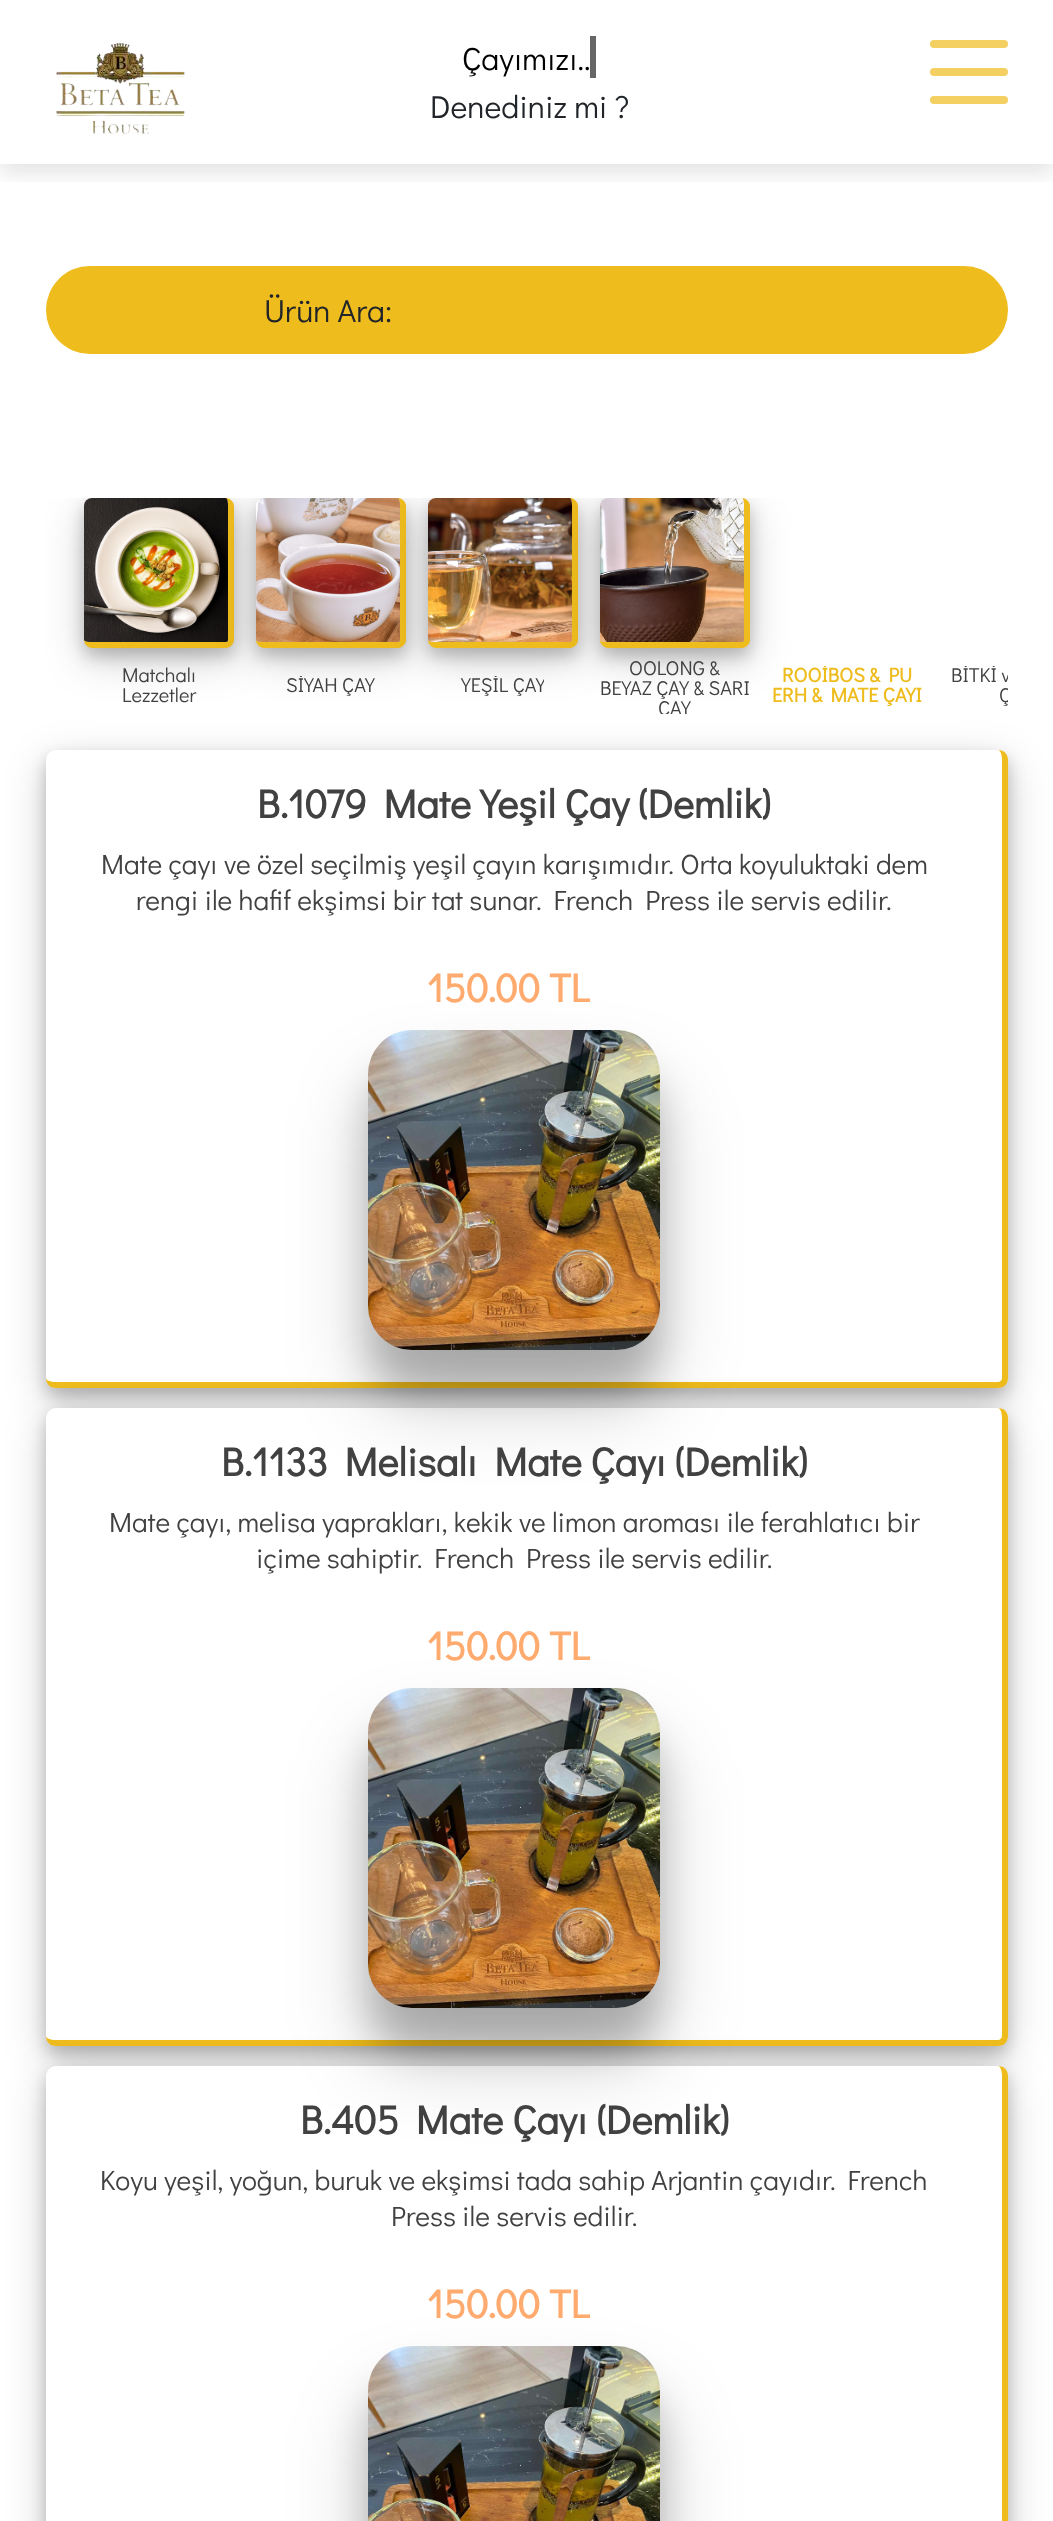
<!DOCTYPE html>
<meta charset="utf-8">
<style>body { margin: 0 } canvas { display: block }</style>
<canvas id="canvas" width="1053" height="2521"></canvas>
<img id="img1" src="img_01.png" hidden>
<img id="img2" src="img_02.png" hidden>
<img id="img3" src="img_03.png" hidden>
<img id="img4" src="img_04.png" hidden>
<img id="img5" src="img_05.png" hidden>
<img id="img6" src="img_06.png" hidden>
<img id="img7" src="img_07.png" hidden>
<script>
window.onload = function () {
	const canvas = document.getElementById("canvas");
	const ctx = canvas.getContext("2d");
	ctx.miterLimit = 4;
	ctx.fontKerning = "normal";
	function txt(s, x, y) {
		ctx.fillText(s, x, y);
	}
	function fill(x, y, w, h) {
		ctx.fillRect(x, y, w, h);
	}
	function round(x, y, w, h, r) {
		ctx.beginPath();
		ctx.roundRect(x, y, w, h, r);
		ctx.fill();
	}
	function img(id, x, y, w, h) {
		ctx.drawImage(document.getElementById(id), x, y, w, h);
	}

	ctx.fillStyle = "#FFFFFF";
	fill(0, 0, 1053, 2521);
	ctx.save();
	ctx.beginPath();
	ctx.rect(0, 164, 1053, 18);
	ctx.clip();
	ctx.fillStyle = "rgba(0, 0, 0, 0.1)";
	ctx.filter = "blur(10px)";
	ctx.beginPath();
	ctx.rect(0, 10, 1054, 164);
	ctx.fill();
	ctx.filter = "none";
	ctx.restore();
	img("img1", 56, 43, 129, 91);
	ctx.fillStyle = "#666666";
	fill(590, 36, 6, 42);
	ctx.fillStyle = "#F3D061";
	round(930, 40, 78, 8, 4);
	round(930, 68, 78, 8, 4);
	round(930, 96, 78, 8, 4);
	ctx.fillStyle = "#EEBC1D";
	round(46, 266, 962, 88, 44);
	ctx.save();
	ctx.beginPath();
	ctx.rect(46, 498, 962, 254);
	ctx.clip();
	ctx.fillStyle = "rgba(0, 0, 0, 0.19)";
	ctx.filter = "blur(20px)";
	ctx.beginPath();
	ctx.roundRect(84, 510, 150, 150, 8);
	ctx.fill();
	ctx.filter = "none";
	ctx.fillStyle = "rgba(0, 0, 0, 0.2)";
	ctx.filter = "blur(8px)";
	ctx.beginPath();
	ctx.roundRect(84, 506, 150, 150, 8);
	ctx.fill();
	ctx.filter = "none";
	ctx.restore();
	ctx.beginPath();
	ctx.moveTo(92, 498);
	ctx.lineTo(226, 498);
	ctx.bezierCurveTo(230, 498, 234, 502, 234, 506);
	ctx.lineTo(234, 640);
	ctx.bezierCurveTo(234, 644, 230, 648, 226, 648);
	ctx.lineTo(92, 648);
	ctx.bezierCurveTo(88, 648, 84, 644, 84, 640);
	ctx.lineTo(84, 506);
	ctx.bezierCurveTo(84, 502, 88, 498, 92, 498);
	ctx.closePath();
	ctx.moveTo(92, 498);
	ctx.lineTo(226, 498);
	ctx.bezierCurveTo(227, 498, 228, 502, 228, 506);
	ctx.lineTo(228, 640);
	ctx.bezierCurveTo(228, 641, 227, 642, 226, 642);
	ctx.lineTo(92, 642);
	ctx.bezierCurveTo(88, 642, 84, 641, 84, 640);
	ctx.lineTo(84, 506);
	ctx.bezierCurveTo(84, 502, 88, 498, 92, 498);
	ctx.closePath();
	ctx.fill("evenodd");
	img("img2", 84, 498, 144, 144);
	ctx.save();
	ctx.beginPath();
	ctx.rect(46, 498, 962, 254);
	ctx.clip();
	ctx.fillStyle = "rgba(0, 0, 0, 0.19)";
	ctx.filter = "blur(20px)";
	ctx.beginPath();
	ctx.roundRect(256, 510, 150, 150, 8);
	ctx.fill();
	ctx.filter = "none";
	ctx.fillStyle = "rgba(0, 0, 0, 0.2)";
	ctx.filter = "blur(8px)";
	ctx.beginPath();
	ctx.roundRect(256, 506, 150, 150, 8);
	ctx.fill();
	ctx.filter = "none";
	ctx.restore();
	ctx.beginPath();
	ctx.moveTo(264, 498);
	ctx.lineTo(398, 498);
	ctx.bezierCurveTo(402, 498, 406, 502, 406, 506);
	ctx.lineTo(406, 640);
	ctx.bezierCurveTo(406, 644, 402, 648, 398, 648);
	ctx.lineTo(264, 648);
	ctx.bezierCurveTo(260, 648, 256, 644, 256, 640);
	ctx.lineTo(256, 506);
	ctx.bezierCurveTo(256, 502, 260, 498, 264, 498);
	ctx.closePath();
	ctx.moveTo(264, 498);
	ctx.lineTo(398, 498);
	ctx.bezierCurveTo(399, 498, 400, 502, 400, 506);
	ctx.lineTo(400, 640);
	ctx.bezierCurveTo(400, 641, 399, 642, 398, 642);
	ctx.lineTo(264, 642);
	ctx.bezierCurveTo(260, 642, 256, 641, 256, 640);
	ctx.lineTo(256, 506);
	ctx.bezierCurveTo(256, 502, 260, 498, 264, 498);
	ctx.closePath();
	ctx.fill("evenodd");
	img("img3", 256, 498, 144, 144);
	ctx.save();
	ctx.beginPath();
	ctx.rect(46, 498, 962, 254);
	ctx.clip();
	ctx.fillStyle = "rgba(0, 0, 0, 0.19)";
	ctx.filter = "blur(20px)";
	ctx.beginPath();
	ctx.roundRect(428, 510, 150, 150, 8);
	ctx.fill();
	ctx.filter = "none";
	ctx.fillStyle = "rgba(0, 0, 0, 0.2)";
	ctx.filter = "blur(8px)";
	ctx.beginPath();
	ctx.roundRect(428, 506, 150, 150, 8);
	ctx.fill();
	ctx.filter = "none";
	ctx.restore();
	ctx.beginPath();
	ctx.moveTo(436, 498);
	ctx.lineTo(570, 498);
	ctx.bezierCurveTo(574, 498, 578, 502, 578, 506);
	ctx.lineTo(578, 640);
	ctx.bezierCurveTo(578, 644, 574, 648, 570, 648);
	ctx.lineTo(436, 648);
	ctx.bezierCurveTo(432, 648, 428, 644, 428, 640);
	ctx.lineTo(428, 506);
	ctx.bezierCurveTo(428, 502, 432, 498, 436, 498);
	ctx.closePath();
	ctx.moveTo(436, 498);
	ctx.lineTo(570, 498);
	ctx.bezierCurveTo(571, 498, 572, 502, 572, 506);
	ctx.lineTo(572, 640);
	ctx.bezierCurveTo(572, 641, 571, 642, 570, 642);
	ctx.lineTo(436, 642);
	ctx.bezierCurveTo(432, 642, 428, 641, 428, 640);
	ctx.lineTo(428, 506);
	ctx.bezierCurveTo(428, 502, 432, 498, 436, 498);
	ctx.closePath();
	ctx.fill("evenodd");
	img("img4", 428, 498, 144, 144);
	ctx.save();
	ctx.beginPath();
	ctx.rect(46, 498, 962, 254);
	ctx.clip();
	ctx.fillStyle = "rgba(0, 0, 0, 0.19)";
	ctx.filter = "blur(20px)";
	ctx.beginPath();
	ctx.roundRect(600, 510, 150, 150, 8);
	ctx.fill();
	ctx.filter = "none";
	ctx.fillStyle = "rgba(0, 0, 0, 0.2)";
	ctx.filter = "blur(8px)";
	ctx.beginPath();
	ctx.roundRect(600, 506, 150, 150, 8);
	ctx.fill();
	ctx.filter = "none";
	ctx.restore();
	ctx.beginPath();
	ctx.moveTo(608, 498);
	ctx.lineTo(742, 498);
	ctx.bezierCurveTo(746, 498, 750, 502, 750, 506);
	ctx.lineTo(750, 640);
	ctx.bezierCurveTo(750, 644, 746, 648, 742, 648);
	ctx.lineTo(608, 648);
	ctx.bezierCurveTo(604, 648, 600, 644, 600, 640);
	ctx.lineTo(600, 506);
	ctx.bezierCurveTo(600, 502, 604, 498, 608, 498);
	ctx.closePath();
	ctx.moveTo(608, 498);
	ctx.lineTo(742, 498);
	ctx.bezierCurveTo(743, 498, 744, 502, 744, 506);
	ctx.lineTo(744, 640);
	ctx.bezierCurveTo(744, 641, 743, 642, 742, 642);
	ctx.lineTo(608, 642);
	ctx.bezierCurveTo(604, 642, 600, 641, 600, 640);
	ctx.lineTo(600, 506);
	ctx.bezierCurveTo(600, 502, 604, 498, 608, 498);
	ctx.closePath();
	ctx.fill("evenodd");
	img("img5", 600, 498, 144, 144);
	ctx.fillStyle = "rgba(0, 0, 0, 0.19)";
	ctx.filter = "blur(20px)";
	ctx.beginPath();
	ctx.roundRect(46, 762, 962, 638, 10);
	ctx.fill();
	ctx.filter = "none";
	ctx.fillStyle = "rgba(0, 0, 0, 0.2)";
	ctx.filter = "blur(8px)";
	ctx.beginPath();
	ctx.roundRect(46, 758, 962, 638, 10);
	ctx.fill();
	ctx.filter = "none";
	ctx.fillStyle = "#FFFFFF";
	round(46, 750, 962, 638, 10);
	ctx.fillStyle = "#EEBC1D";
	ctx.beginPath();
	ctx.moveTo(56, 750);
	ctx.lineTo(998, 750);
	ctx.bezierCurveTo(1004, 750, 1008, 754, 1008, 760);
	ctx.lineTo(1008, 1378);
	ctx.bezierCurveTo(1008, 1384, 1004, 1388, 998, 1388);
	ctx.lineTo(56, 1388);
	ctx.bezierCurveTo(50, 1388, 46, 1384, 46, 1378);
	ctx.lineTo(46, 760);
	ctx.bezierCurveTo(46, 754, 50, 750, 56, 750);
	ctx.closePath();
	ctx.moveTo(56, 750);
	ctx.lineTo(998, 750);
	ctx.bezierCurveTo(1000, 750, 1002, 754, 1002, 760);
	ctx.lineTo(1002, 1378);
	ctx.bezierCurveTo(1002, 1380, 1000, 1382, 998, 1382);
	ctx.lineTo(56, 1382);
	ctx.bezierCurveTo(50, 1382, 46, 1380, 46, 1378);
	ctx.lineTo(46, 760);
	ctx.bezierCurveTo(46, 754, 50, 750, 56, 750);
	ctx.closePath();
	ctx.fill("evenodd");
	ctx.fillStyle = "rgba(0, 0, 0, 0.19)";
	ctx.filter = "blur(20px)";
	ctx.beginPath();
	ctx.roundRect(46, 1420, 962, 638, 10);
	ctx.fill();
	ctx.filter = "none";
	ctx.fillStyle = "rgba(0, 0, 0, 0.2)";
	ctx.filter = "blur(8px)";
	ctx.beginPath();
	ctx.roundRect(46, 1416, 962, 638, 10);
	ctx.fill();
	ctx.filter = "none";
	ctx.fillStyle = "#FFFFFF";
	round(46, 1408, 962, 638, 10);
	ctx.fillStyle = "#EEBC1D";
	ctx.beginPath();
	ctx.moveTo(56, 1408);
	ctx.lineTo(998, 1408);
	ctx.bezierCurveTo(1004, 1408, 1008, 1412, 1008, 1418);
	ctx.lineTo(1008, 2036);
	ctx.bezierCurveTo(1008, 2042, 1004, 2046, 998, 2046);
	ctx.lineTo(56, 2046);
	ctx.bezierCurveTo(50, 2046, 46, 2042, 46, 2036);
	ctx.lineTo(46, 1418);
	ctx.bezierCurveTo(46, 1412, 50, 1408, 56, 1408);
	ctx.closePath();
	ctx.moveTo(56, 1408);
	ctx.lineTo(998, 1408);
	ctx.bezierCurveTo(1000, 1408, 1002, 1412, 1002, 1418);
	ctx.lineTo(1002, 2036);
	ctx.bezierCurveTo(1002, 2038, 1000, 2040, 998, 2040);
	ctx.lineTo(56, 2040);
	ctx.bezierCurveTo(50, 2040, 46, 2038, 46, 2036);
	ctx.lineTo(46, 1418);
	ctx.bezierCurveTo(46, 1412, 50, 1408, 56, 1408);
	ctx.closePath();
	ctx.fill("evenodd");
	ctx.fillStyle = "rgba(0, 0, 0, 0.19)";
	ctx.filter = "blur(40px)";
	ctx.beginPath();
	ctx.roundRect(368, 1082, 292, 320, 44);
	ctx.fill();
	ctx.filter = "none";
	ctx.fillStyle = "rgba(0, 0, 0, 0.2)";
	ctx.filter = "blur(18px)";
	ctx.beginPath();
	ctx.roundRect(368, 1070, 292, 320, 44);
	ctx.fill();
	ctx.filter = "none";
	img("img6", 368, 1030, 292, 320);
	ctx.fillStyle = "rgba(0, 0, 0, 0.19)";
	ctx.filter = "blur(20px)";
	ctx.beginPath();
	ctx.roundRect(46, 2078, 962, 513, 10);
	ctx.fill();
	ctx.filter = "none";
	ctx.fillStyle = "rgba(0, 0, 0, 0.2)";
	ctx.filter = "blur(8px)";
	ctx.beginPath();
	ctx.roundRect(46, 2074, 962, 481, 10);
	ctx.fill();
	ctx.filter = "none";
	ctx.fillStyle = "#FFFFFF";
	round(46, 2066, 962, 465, 10);
	ctx.fillStyle = "rgba(0, 0, 0, 0.19)";
	ctx.filter = "blur(40px)";
	ctx.beginPath();
	ctx.roundRect(368, 1740, 292, 320, 44);
	ctx.fill();
	ctx.filter = "none";
	ctx.fillStyle = "rgba(0, 0, 0, 0.2)";
	ctx.filter = "blur(18px)";
	ctx.beginPath();
	ctx.roundRect(368, 1728, 292, 320, 44);
	ctx.fill();
	ctx.filter = "none";
	img("img6", 368, 1688, 292, 320);
	ctx.fillStyle = "#EEBC1D";
	ctx.beginPath();
	ctx.moveTo(56, 2066);
	ctx.lineTo(998, 2066);
	ctx.bezierCurveTo(1004, 2066, 1008, 2070, 1008, 2076);
	ctx.lineTo(1008, 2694);
	ctx.bezierCurveTo(1008, 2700, 1004, 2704, 998, 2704);
	ctx.lineTo(56, 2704);
	ctx.bezierCurveTo(50, 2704, 46, 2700, 46, 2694);
	ctx.lineTo(46, 2076);
	ctx.bezierCurveTo(46, 2070, 50, 2066, 56, 2066);
	ctx.closePath();
	ctx.moveTo(56, 2066);
	ctx.lineTo(998, 2066);
	ctx.bezierCurveTo(1000, 2066, 1002, 2070, 1002, 2076);
	ctx.lineTo(1002, 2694);
	ctx.bezierCurveTo(1002, 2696, 1000, 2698, 998, 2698);
	ctx.lineTo(56, 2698);
	ctx.bezierCurveTo(50, 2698, 46, 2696, 46, 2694);
	ctx.lineTo(46, 2076);
	ctx.bezierCurveTo(46, 2070, 50, 2066, 56, 2066);
	ctx.closePath();
	ctx.fill("evenodd");
	ctx.fillStyle = "rgba(0, 0, 0, 0.19)";
	ctx.filter = "blur(40px)";
	ctx.beginPath();
	ctx.roundRect(368, 2398, 292, 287, 44);
	ctx.fill();
	ctx.filter = "none";
	ctx.fillStyle = "rgba(0, 0, 0, 0.2)";
	ctx.filter = "blur(18px)";
	ctx.beginPath();
	ctx.roundRect(368, 2386, 292, 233, 44);
	ctx.fill();
	ctx.filter = "none";
	img("img7", 368, 2346, 292, 175);
	ctx.font = "32px Didact Gothic";
	ctx.fillStyle = "#000000";
	txt("Çayımızı..", 462, 70);
	ctx.fillStyle = "#212529";
	txt("Denediniz mi ?", 430, 118);
	txt("Ürün Ara:", 264, 322);
	ctx.font = "20px Didact Gothic";
	ctx.fillStyle = "#414141";
	txt("Matchalı", 122, 682);
	txt("Lezzetler", 122, 702);
	ctx.save();
	ctx.beginPath();
	ctx.rect(286, 676, 90, 20);
	ctx.clip();
	txt("SİYAH ÇAY", 286, 692);
	ctx.restore();
	ctx.save();
	ctx.beginPath();
	ctx.rect(460, 676, 84, 20);
	ctx.clip();
	txt("YEŞİL ÇAY", 461, 692);
	ctx.restore();
	txt("OOLONG &", 629, 675);
	txt("BEYAZ ÇAY & SARI", 600, 695);
	ctx.save();
	ctx.beginPath();
	ctx.rect(600, 658, 150, 56);
	ctx.clip();
	txt("ÇAY", 658, 715);
	ctx.restore();
	ctx.save();
	ctx.beginPath();
	ctx.rect(772, 666, 150, 40);
	ctx.clip();
	ctx.font = "bold 20px Didact Gothic";
	ctx.fillStyle = "#EEBC1D";
	txt("ROOİBOS & PU", 782, 682);
	ctx.restore();
	ctx.font = "bold 20px Didact Gothic";
	ctx.fillStyle = "#EEBC1D";
	txt("ERH & MATE ÇAYI", 772, 702);
	ctx.save();
	ctx.beginPath();
	ctx.rect(944, 666, 64, 40);
	ctx.clip();
	ctx.font = "20px Didact Gothic";
	ctx.fillStyle = "#414141";
	txt("BİTKİ v", 951, 682);
	txt("Ç", 999, 702);
	ctx.restore();
	ctx.font = "bold 40px Didact Gothic";
	ctx.fillStyle = "#414141";
	txt("B.1079 Mate Yeşil Çay (Demlik)", 257, 818);
	ctx.font = "28px Didact Gothic";
	txt("Mate çayı ve özel seçilmiş yeşil çayın karışımıdır. Orta koyuluktaki dem", 101, 874);
	txt("rengi ile hafif ekşimsi bir tat sunar. French Press ile servis edilir.", 136, 910);
	ctx.font = "bold 40px Didact Gothic";
	ctx.fillStyle = "#FFAB6F";
	txt("150.00 TL", 427, 1002);
	ctx.fillStyle = "#414141";
	txt("B.1133 Melisalı Mate Çayı (Demlik)", 221, 1476);
	ctx.font = "28px Didact Gothic";
	txt("Mate çayı, melisa yaprakları, kekik ve limon aroması ile ferahlatıcı bir", 109, 1532);
	txt("içime sahiptir. French Press ile servis edilir.", 256, 1568);
	ctx.font = "bold 40px Didact Gothic";
	ctx.fillStyle = "#FFAB6F";
	txt("150.00 TL", 427, 1660);
	ctx.fillStyle = "#414141";
	txt("B.405 Mate Çayı (Demlik)", 300, 2134);
	ctx.font = "28px Didact Gothic";
	txt("Koyu yeşil, yoğun, buruk ve ekşimsi tada sahip Arjantin çayıdır. French", 100, 2190);
	txt("Press ile servis edilir.", 391, 2226);
	ctx.font = "bold 40px Didact Gothic";
	ctx.fillStyle = "#FFAB6F";
	txt("150.00 TL", 427, 2318);
};
</script>
